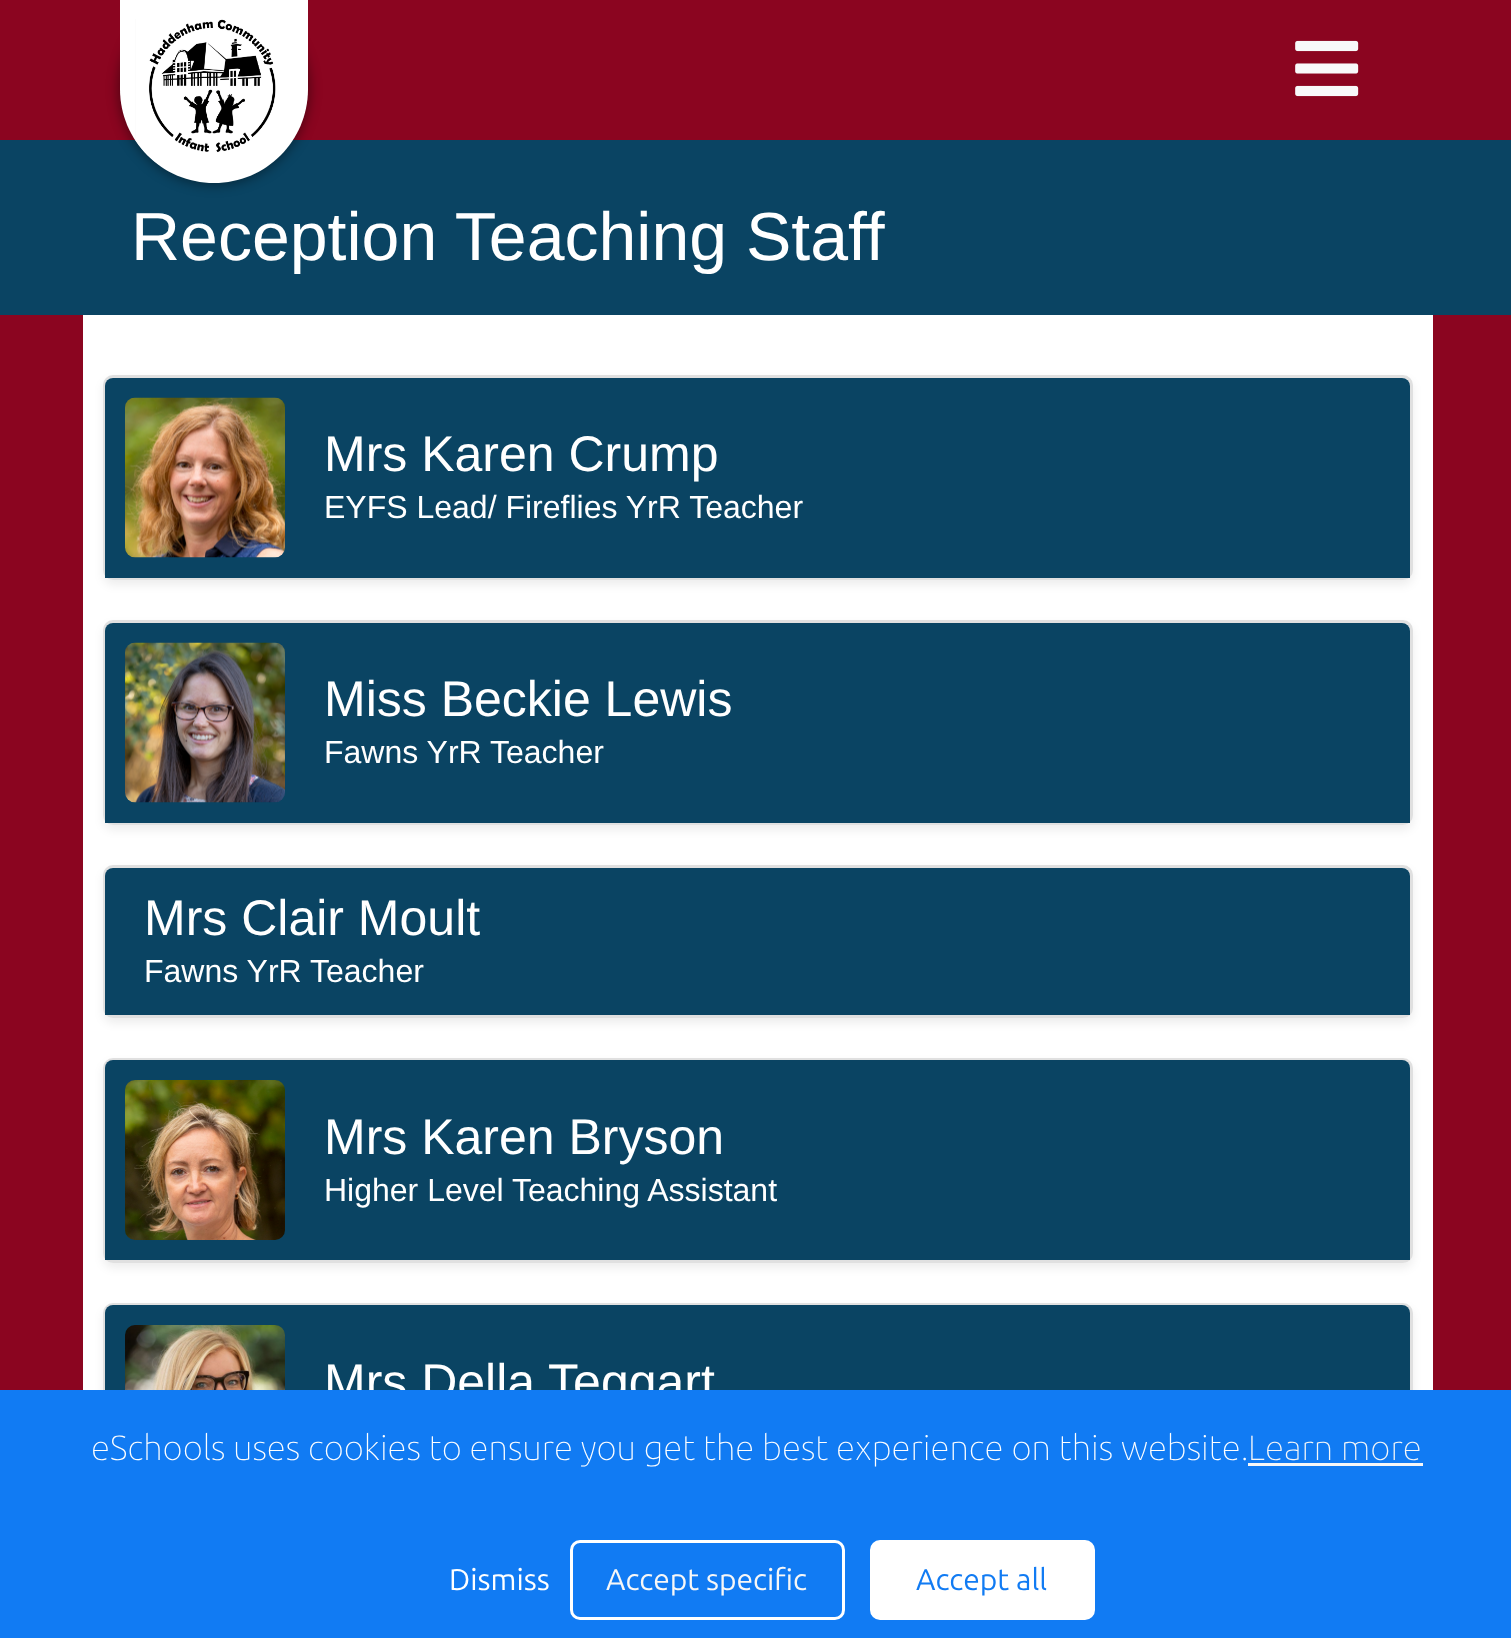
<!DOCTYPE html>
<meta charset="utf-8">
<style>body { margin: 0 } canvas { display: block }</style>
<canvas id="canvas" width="1511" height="1638"></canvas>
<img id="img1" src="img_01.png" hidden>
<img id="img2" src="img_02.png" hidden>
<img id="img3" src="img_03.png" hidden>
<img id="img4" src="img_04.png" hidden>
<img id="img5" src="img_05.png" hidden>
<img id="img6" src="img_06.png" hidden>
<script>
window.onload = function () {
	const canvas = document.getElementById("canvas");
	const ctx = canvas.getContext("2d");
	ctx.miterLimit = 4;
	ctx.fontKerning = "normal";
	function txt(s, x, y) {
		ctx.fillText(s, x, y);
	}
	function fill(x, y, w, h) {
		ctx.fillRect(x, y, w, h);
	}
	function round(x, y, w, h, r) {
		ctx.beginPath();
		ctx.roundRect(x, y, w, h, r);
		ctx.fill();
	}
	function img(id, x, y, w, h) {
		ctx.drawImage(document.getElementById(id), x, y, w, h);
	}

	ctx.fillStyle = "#0A4463";
	fill(0, 0, 1511, 1638);
	ctx.fillStyle = "#8B0520";
	fill(0, 0, 1511, 140);
	ctx.fillStyle = "rgba(0, 0, 0, 0.4)";
	ctx.filter = "blur(6px)";
	ctx.beginPath();
	ctx.roundRect(118, -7, 192, 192, 96);
	ctx.fill();
	ctx.filter = "none";
	ctx.fillStyle = "#FFFFFF";
	ctx.beginPath();
	ctx.moveTo(120, -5);
	ctx.lineTo(308, -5);
	ctx.lineTo(308, 89);
	ctx.bezierCurveTo(308, 141, 266, 183, 214, 183);
	ctx.bezierCurveTo(162, 183, 120, 141, 120, 89);
	ctx.closePath();
	ctx.fill();
	img("img1", 135, 19, 141, 146);
	img("img2", 1295, 40, 64, 57);
	ctx.fillStyle = "#8B0520";
	fill(0, 315, 1511, 1075);
	ctx.fillStyle = "#FFFFFF";
	fill(83, 315, 1350, 1075);
	ctx.fillStyle = "rgba(0, 0, 0, 0.07)";
	ctx.filter = "blur(5px)";
	ctx.beginPath();
	ctx.roundRect(103, 380, 1310, 205, 10);
	ctx.fill();
	ctx.filter = "none";
	ctx.fillStyle = "#FFFFFF";
	round(103, 375, 1310, 205, 10);
	ctx.beginPath();
	ctx.roundRect(104.5, 376.5, 1307, 202, 8.5);
	ctx.strokeStyle = "rgba(0, 0, 0, 0.12)";
	ctx.lineWidth = 3;
	ctx.stroke();
	ctx.fillStyle = "#0A4463";
	ctx.beginPath();
	ctx.roundRect(105, 378, 1305, 200, [8, 8, 0, 0]);
	ctx.fill();
	img("img3", 125, 397, 160, 161);
	ctx.fillStyle = "rgba(0, 0, 0, 0.07)";
	ctx.filter = "blur(5px)";
	ctx.beginPath();
	ctx.roundRect(103, 625, 1310, 205, 10);
	ctx.fill();
	ctx.filter = "none";
	ctx.fillStyle = "#FFFFFF";
	round(103, 620, 1310, 205, 10);
	ctx.beginPath();
	ctx.roundRect(104.5, 621.5, 1307, 202, 8.5);
	ctx.stroke();
	ctx.fillStyle = "#0A4463";
	ctx.beginPath();
	ctx.roundRect(105, 623, 1305, 200, [8, 8, 0, 0]);
	ctx.fill();
	img("img4", 125, 642, 160, 161);
	ctx.fillStyle = "rgba(0, 0, 0, 0.07)";
	ctx.filter = "blur(5px)";
	ctx.beginPath();
	ctx.roundRect(103, 870, 1310, 153, 10);
	ctx.fill();
	ctx.filter = "none";
	ctx.fillStyle = "#FFFFFF";
	round(103, 865, 1310, 153, 10);
	ctx.beginPath();
	ctx.roundRect(104.5, 866.5, 1307, 150, 8.5);
	ctx.stroke();
	ctx.fillStyle = "#0A4463";
	ctx.beginPath();
	ctx.roundRect(105, 868, 1305, 147, [8, 8, 0, 0]);
	ctx.fill();
	ctx.fillStyle = "rgba(0, 0, 0, 0.07)";
	ctx.filter = "blur(5px)";
	ctx.beginPath();
	ctx.roundRect(103, 1063, 1310, 205, 10);
	ctx.fill();
	ctx.filter = "none";
	ctx.fillStyle = "#FFFFFF";
	round(103, 1058, 1310, 205, 10);
	ctx.beginPath();
	ctx.roundRect(104.5, 1059.5, 1307, 202, 8.5);
	ctx.stroke();
	ctx.fillStyle = "#0A4463";
	ctx.beginPath();
	ctx.roundRect(105, 1060, 1305, 200, [8, 8, 0, 0]);
	ctx.fill();
	img("img5", 125, 1080, 160, 160);
	ctx.fillStyle = "rgba(0, 0, 0, 0.07)";
	ctx.filter = "blur(5px)";
	ctx.beginPath();
	ctx.roundRect(103, 1308, 1310, 205, 10);
	ctx.fill();
	ctx.filter = "none";
	ctx.fillStyle = "#FFFFFF";
	round(103, 1303, 1310, 205, 10);
	ctx.beginPath();
	ctx.roundRect(104.5, 1304.5, 1307, 202, 8.5);
	ctx.stroke();
	ctx.fillStyle = "#0A4463";
	ctx.beginPath();
	ctx.roundRect(105, 1305, 1305, 200, [8, 8, 0, 0]);
	ctx.fill();
	img("img6", 125, 1325, 160, 65);
	ctx.font = "68px Liberation Sans";
	ctx.fillStyle = "#FFFFFF";
	txt("Reception Teaching Staff", 131, 260);
	ctx.font = "50px Liberation Sans";
	txt("Mrs Karen Crump", 324, 471);
	ctx.font = "32px Liberation Sans";
	txt("EYFS Lead/ Fireflies YrR Teacher", 324, 518);
	ctx.font = "50px Liberation Sans";
	txt("Miss Beckie Lewis", 324, 716);
	ctx.font = "32px Liberation Sans";
	txt("Fawns YrR Teacher", 324, 763);
	ctx.font = "50px Liberation Sans";
	txt("Mrs Clair Moult", 144, 935);
	ctx.font = "32px Liberation Sans";
	txt("Fawns YrR Teacher", 144, 982);
	ctx.font = "50px Liberation Sans";
	txt("Mrs Karen Bryson", 324, 1154);
	ctx.font = "32px Liberation Sans";
	txt("Higher Level Teaching Assistant", 324, 1201);
	ctx.font = "50px Liberation Sans";
	txt("Mrs Della Teggart", 324, 1399);
	ctx.fillStyle = "#117BF3";
	fill(0, 1390, 1511, 248);
	ctx.font = "100 35px Ubuntu";
	ctx.fillStyle = "#FFFFFF";
	txt("eSchools uses cookies to ensure you get the best experience on this website.", 91, 1460);
	ctx.fillStyle = "#F7F7F7";
	fill(1248, 1463, 175, 3);
	txt("Learn more", 1248, 1460);
	ctx.font = "30px Ubuntu";
	ctx.fillStyle = "#FFFFFF";
	txt("Dismiss", 449, 1590);
	ctx.beginPath();
	ctx.roundRect(571.5, 1541.5, 272, 77, 8.5);
	ctx.strokeStyle = "#FFFFFF";
	ctx.stroke();
	ctx.fillStyle = "#F7F7F7";
	txt("Accept specific", 606, 1590);
	ctx.fillStyle = "#FFFFFF";
	ctx.beginPath();
	ctx.roundRect(871.5, 1541.5, 222, 77, 8.5);
	ctx.fill();
	ctx.stroke();
	ctx.fillStyle = "#117BF3";
	txt("Accept all", 916, 1590);
};
</script>
